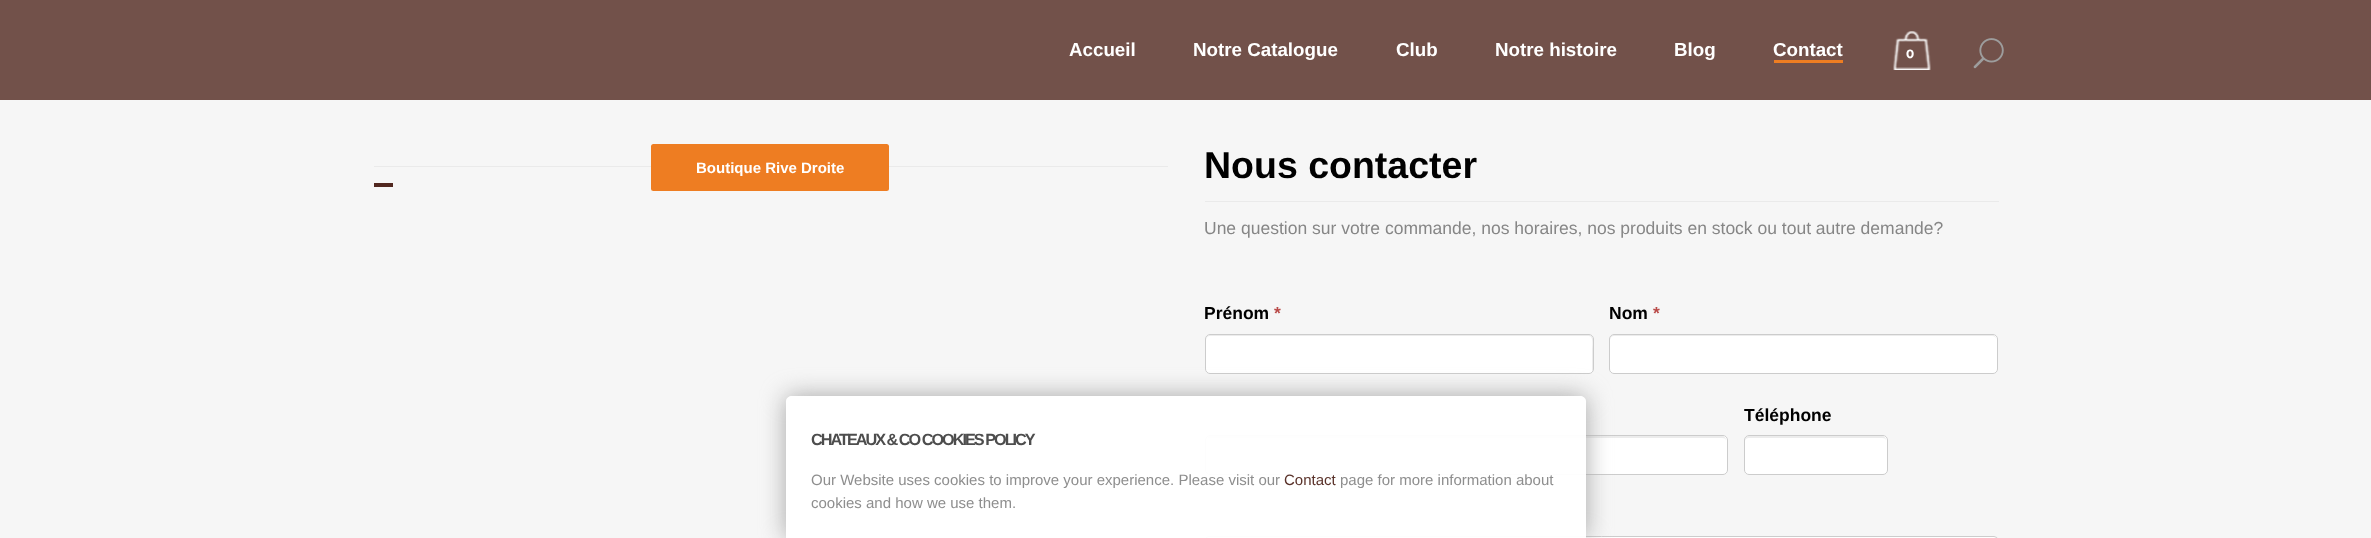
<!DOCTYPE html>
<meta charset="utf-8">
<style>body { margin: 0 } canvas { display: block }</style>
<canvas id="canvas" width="2371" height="538"></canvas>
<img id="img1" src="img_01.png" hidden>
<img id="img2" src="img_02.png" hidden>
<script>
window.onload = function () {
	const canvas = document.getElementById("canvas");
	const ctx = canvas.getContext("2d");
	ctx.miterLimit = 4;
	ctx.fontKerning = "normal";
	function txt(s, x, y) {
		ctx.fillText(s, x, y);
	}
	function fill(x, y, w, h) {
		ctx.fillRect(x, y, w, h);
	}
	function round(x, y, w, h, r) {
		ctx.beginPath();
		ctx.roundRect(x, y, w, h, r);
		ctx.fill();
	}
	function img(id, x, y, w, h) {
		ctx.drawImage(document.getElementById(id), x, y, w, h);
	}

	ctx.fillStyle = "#F6F6F6";
	fill(0, 0, 2371, 538);
	ctx.fillStyle = "#72514A";
	fill(0, 0, 2371, 100);
	ctx.fillStyle = "#EE7D22";
	fill(1774, 60, 69, 3);
	img("img1", 1893, 31, 38, 39);
	img("img2", 1973, 38, 31, 31);
	ctx.fillStyle = "#51271F";
	fill(374, 183, 19, 4);
	ctx.fillStyle = "#EAEAEA";
	fill(374, 166, 794, 1);
	ctx.fillStyle = "#EE7D22";
	round(651, 144, 238, 47, 2.5);
	ctx.fillStyle = "#EAEAEA";
	fill(1205, 201, 794, 1);
	ctx.fillStyle = "#FFFFFF";
	round(1205, 334, 389, 40, 5);
	ctx.fillStyle = "#ECECEC";
	ctx.beginPath();
	ctx.moveTo(1210, 336);
	ctx.lineTo(1589, 336);
	ctx.bezierCurveTo(1594, 336, 1592, 348, 1592, 350);
	ctx.lineTo(1592, 372);
	ctx.bezierCurveTo(1592, 371, 1593, 370, 1593, 369);
	ctx.lineTo(1593, 339);
	ctx.bezierCurveTo(1593, 337, 1591, 335, 1589, 335);
	ctx.lineTo(1210, 335);
	ctx.bezierCurveTo(1208, 335, 1206, 337, 1206, 339);
	ctx.lineTo(1206, 340);
	ctx.bezierCurveTo(1206, 338, 1208, 336, 1210, 336);
	ctx.closePath();
	ctx.fill();
	ctx.beginPath();
	ctx.roundRect(1205.5, 334.5, 388, 39, 4.5);
	ctx.strokeStyle = "#CCCCCC";
	ctx.stroke();
	ctx.fillStyle = "#FFFFFF";
	round(1609, 334, 389, 40, 5);
	ctx.fillStyle = "#ECECEC";
	ctx.beginPath();
	ctx.moveTo(1614, 336);
	ctx.lineTo(1992, 336);
	ctx.bezierCurveTo(1995, 336, 1996, 338, 1996, 340);
	ctx.bezierCurveTo(1996, 337, 1995, 335, 1992, 335);
	ctx.lineTo(1614, 335);
	ctx.bezierCurveTo(1611, 335, 1610, 337, 1610, 340);
	ctx.bezierCurveTo(1610, 338, 1612, 336, 1614, 336);
	ctx.closePath();
	ctx.fill();
	ctx.beginPath();
	ctx.roundRect(1609.5, 334.5, 388, 39, 4.5);
	ctx.stroke();
	ctx.fillStyle = "#FFFFFF";
	round(1744, 435, 144, 40, 5);
	ctx.fillStyle = "#ECECEC";
	ctx.beginPath();
	ctx.moveTo(1749, 438);
	ctx.lineTo(1882, 438);
	ctx.bezierCurveTo(1885, 438, 1886, 439, 1886, 441);
	ctx.lineTo(1886, 440);
	ctx.bezierCurveTo(1886, 438, 1884, 436, 1882, 436);
	ctx.lineTo(1749, 436);
	ctx.bezierCurveTo(1747, 436, 1745, 438, 1745, 440);
	ctx.lineTo(1745, 441);
	ctx.bezierCurveTo(1745, 439, 1747, 438, 1749, 438);
	ctx.closePath();
	ctx.fill();
	ctx.beginPath();
	ctx.roundRect(1744.5, 435.5, 143, 39, 4.5);
	ctx.stroke();
	ctx.fillStyle = "#FFFFFF";
	round(1205, 435, 523, 40, 5);
	ctx.fillStyle = "#ECECEC";
	ctx.beginPath();
	ctx.moveTo(1210, 438);
	ctx.lineTo(1722, 438);
	ctx.bezierCurveTo(1725, 438, 1726, 439, 1726, 441);
	ctx.lineTo(1726, 440);
	ctx.bezierCurveTo(1726, 438, 1724, 436, 1722, 436);
	ctx.lineTo(1210, 436);
	ctx.bezierCurveTo(1208, 436, 1206, 438, 1206, 440);
	ctx.lineTo(1206, 441);
	ctx.bezierCurveTo(1206, 439, 1208, 438, 1210, 438);
	ctx.closePath();
	ctx.fill();
	ctx.beginPath();
	ctx.roundRect(1205.5, 435.5, 522, 39, 4.5);
	ctx.stroke();
	ctx.fillStyle = "#FFFFFF";
	ctx.beginPath();
	ctx.roundRect(1205.5, 536.5, 792, 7, 4.5);
	ctx.fill();
	ctx.stroke();
	ctx.save();
	ctx.beginPath();
	ctx.moveTo(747, 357);
	ctx.lineTo(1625, 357);
	ctx.lineTo(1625, 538);
	ctx.lineTo(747, 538);
	ctx.closePath();
	ctx.moveTo(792, 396);
	ctx.lineTo(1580, 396);
	ctx.bezierCurveTo(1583.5, 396, 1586, 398.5, 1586, 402);
	ctx.lineTo(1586, 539);
	ctx.lineTo(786, 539);
	ctx.lineTo(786, 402);
	ctx.bezierCurveTo(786, 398.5, 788.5, 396, 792, 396);
	ctx.closePath();
	ctx.clip("evenodd");
	ctx.fillStyle = "rgba(161, 161, 161, 0.95)";
	ctx.filter = "blur(12.5px)";
	ctx.beginPath();
	ctx.roundRect(786, 396, 800, 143, 6);
	ctx.fill();
	ctx.filter = "none";
	ctx.restore();
	ctx.fillStyle = "rgba(255, 255, 255, 0.95)";
	ctx.beginPath();
	ctx.moveTo(792, 396);
	ctx.lineTo(1580, 396);
	ctx.bezierCurveTo(1583.5, 396, 1586, 398.5, 1586, 402);
	ctx.lineTo(1586, 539);
	ctx.lineTo(786, 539);
	ctx.lineTo(786, 402);
	ctx.bezierCurveTo(786, 398.5, 788.5, 396, 792, 396);
	ctx.closePath();
	ctx.fill();
	ctx.font = "bold 18.75px Liberation Sans";
	ctx.fillStyle = "#FFFFFF";
	txt("Accueil", 1069, 56);
	txt("Notre Catalogue", 1193, 56);
	txt("Club", 1396, 56);
	txt("Notre histoire", 1495, 56);
	txt("Blog", 1674, 56);
	txt("Contact", 1773, 56);
	ctx.font = "bold 12px Montserrat";
	txt("0", 1906, 58);
	ctx.font = "bold 15px Liberation Sans";
	txt("Boutique Rive Droite", 696, 173);
	ctx.font = "bold 37.5px Liberation Sans";
	ctx.fillStyle = "#000000";
	txt("Nous contacter", 1204, 178);
	ctx.font = "17.5px Liberation Sans";
	ctx.fillStyle = "#868686";
	txt("Une question sur votre commande, nos horaires, nos produits en stock ou tout autre demande?", 1204, 234);
	ctx.font = "bold 17.5px Liberation Sans";
	ctx.fillStyle = "#000000";
	txt("Prénom", 1204, 319);
	ctx.fillStyle = "#B94A48";
	txt("*", 1274, 319);
	ctx.fillStyle = "#000000";
	txt("Nom", 1609, 319);
	ctx.fillStyle = "#B94A48";
	txt("*", 1653, 319);
	ctx.fillStyle = "#000000";
	txt("Téléphone", 1744, 421);
	ctx.letterSpacing = "-2px";
	ctx.font = "bold 16.25px Liberation Sans";
	ctx.fillStyle = "#4D4D4D";
	txt("CHATEAUX & CO COOKIES POLICY", 811, 445);
	ctx.letterSpacing = "0px";
	ctx.font = "15px Liberation Sans";
	ctx.fillStyle = "#8E8E8E";
	txt("Our Website uses cookies to improve your experience. Please visit our", 811, 485);
	ctx.fillStyle = "#5A322A";
	txt("Contact", 1284, 485);
	ctx.fillStyle = "#8E8E8E";
	txt("page for more information about", 1340, 485);
	txt("cookies and how we use them.", 811, 508);
};
</script>
